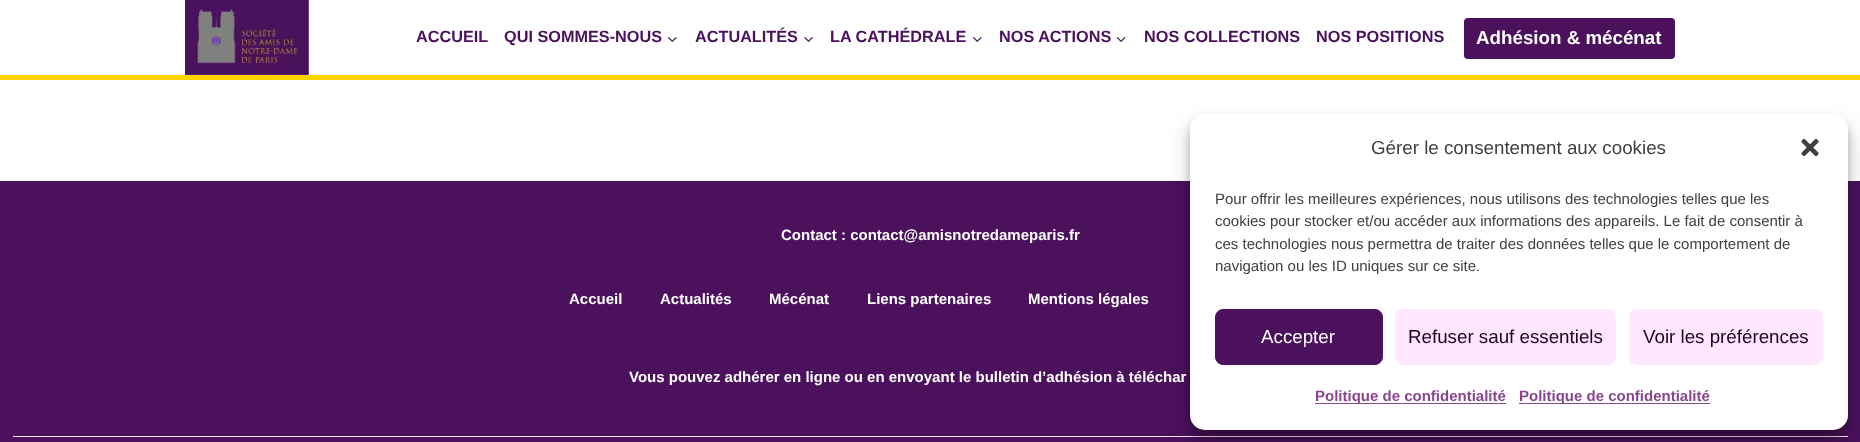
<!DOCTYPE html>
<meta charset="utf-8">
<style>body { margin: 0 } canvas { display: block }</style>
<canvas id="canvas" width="1860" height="442"></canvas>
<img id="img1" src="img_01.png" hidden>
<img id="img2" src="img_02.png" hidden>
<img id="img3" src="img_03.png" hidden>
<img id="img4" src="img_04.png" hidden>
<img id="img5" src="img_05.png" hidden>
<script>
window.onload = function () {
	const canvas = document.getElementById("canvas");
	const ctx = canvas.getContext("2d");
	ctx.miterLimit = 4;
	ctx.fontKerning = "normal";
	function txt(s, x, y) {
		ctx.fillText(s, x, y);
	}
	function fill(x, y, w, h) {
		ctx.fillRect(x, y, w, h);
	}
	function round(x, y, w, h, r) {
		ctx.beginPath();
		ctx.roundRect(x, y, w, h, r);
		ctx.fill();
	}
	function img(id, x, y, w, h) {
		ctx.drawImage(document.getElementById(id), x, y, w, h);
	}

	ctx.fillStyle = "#FFFFFF";
	fill(0, 0, 1860, 442);
	ctx.fillStyle = "#FDD300";
	fill(0, 75, 1860, 5);
	img("img1", 185, 0, 124, 75);
	img("img2", 668, 37, 9, 5);
	img("img3", 804, 37, 9, 5);
	img("img2", 973, 37, 9, 5);
	img("img4", 1116, 37, 10, 5);
	ctx.fillStyle = "#4B115D";
	round(1464, 18, 211, 41, 4);
	fill(0, 181, 1860, 261);
	ctx.fillStyle = "#FFE7FF";
	fill(13, 436, 1835, 1);
	ctx.fillStyle = "rgba(0, 0, 0, 0.23)";
	ctx.filter = "blur(4px)";
	ctx.beginPath();
	ctx.roundRect(1190, 121, 658, 317, 15);
	ctx.fill();
	ctx.filter = "none";
	ctx.fillStyle = "rgba(0, 0, 0, 0.19)";
	ctx.filter = "blur(12.5px)";
	ctx.beginPath();
	ctx.roundRect(1190, 126, 658, 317, 15);
	ctx.fill();
	ctx.filter = "none";
	ctx.fillStyle = "#FFFFFF";
	round(1190, 114, 658, 316, 15);
	img("img5", 1801, 138, 18, 18);
	ctx.fillStyle = "#4B115D";
	ctx.beginPath();
	ctx.roundRect(1215.5, 309.5, 167, 55, 7.5);
	ctx.fill();
	ctx.strokeStyle = "#4B115D";
	ctx.stroke();
	ctx.fillStyle = "#FFE7FF";
	ctx.beginPath();
	ctx.roundRect(1395.5, 309.5, 220, 55, 7.5);
	ctx.fill();
	ctx.strokeStyle = "#FFE7FF";
	ctx.stroke();
	ctx.beginPath();
	ctx.roundRect(1629.5, 309.5, 193, 55, 7.5);
	ctx.fill();
	ctx.stroke();
	ctx.fillStyle = "#8B458F";
	fill(1315, 403, 191, 1);
	fill(1519, 403, 191, 1);
	ctx.font = "bold 16.25px Liberation Sans";
	ctx.fillStyle = "#4B115D";
	txt("ACCUEIL", 416, 42);
	txt("QUI SOMMES-NOUS", 504, 42);
	txt("ACTUALITÉS", 695, 42);
	txt("LA CATHÉDRALE", 830, 42);
	txt("NOS ACTIONS", 999, 42);
	txt("NOS COLLECTIONS", 1144, 42);
	txt("NOS POSITIONS", 1316, 42);
	ctx.font = "bold 18.75px Liberation Sans";
	ctx.fillStyle = "#FFFFFF";
	txt("Adhésion & mécénat", 1476, 44);
	ctx.font = "bold 15px Liberation Sans";
	txt("Contact : contact@amisnotredameparis.fr", 781, 240);
	txt("Accueil", 569, 304);
	txt("Actualités", 660, 304);
	txt("Mécénat", 769, 304);
	txt("Liens partenaires", 867, 304);
	txt("Mentions légales", 1028, 304);
	txt("Vous pouvez adhérer en ligne ou en envoyant le bulletin d’adhésion à téléchar", 629, 382);
	ctx.font = "18.75px Liberation Sans";
	ctx.fillStyle = "#404040";
	txt("Gérer le consentement aux cookies", 1371, 154);
	ctx.font = "15px Liberation Sans";
	txt("Pour offrir les meilleures expériences, nous utilisons des technologies telles que les", 1215, 204);
	txt("cookies pour stocker et/ou accéder aux informations des appareils. Le fait de consentir à", 1215, 226);
	txt("ces technologies nous permettra de traiter des données telles que le comportement de", 1215, 249);
	txt("navigation ou les ID uniques sur ce site.", 1215, 271);
	ctx.font = "18.75px Liberation Sans";
	ctx.fillStyle = "#FFFFFF";
	txt("Accepter", 1261, 343);
	ctx.fillStyle = "#210024";
	txt("Refuser sauf essentiels", 1408, 343);
	txt("Voir les préférences", 1643, 343);
	ctx.font = "bold 15px Liberation Sans";
	ctx.fillStyle = "#8B458F";
	txt("Politique de confidentialité", 1315, 401);
	txt("Politique de confidentialité", 1519, 401);
};
</script>
